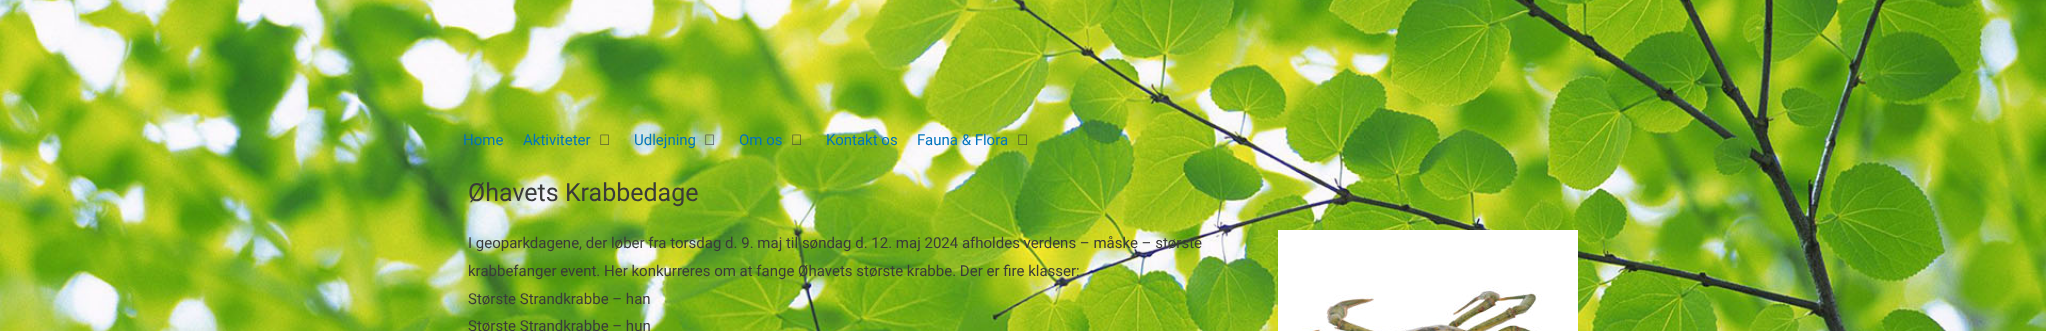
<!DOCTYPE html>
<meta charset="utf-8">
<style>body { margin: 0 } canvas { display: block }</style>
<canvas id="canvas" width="2046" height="331"></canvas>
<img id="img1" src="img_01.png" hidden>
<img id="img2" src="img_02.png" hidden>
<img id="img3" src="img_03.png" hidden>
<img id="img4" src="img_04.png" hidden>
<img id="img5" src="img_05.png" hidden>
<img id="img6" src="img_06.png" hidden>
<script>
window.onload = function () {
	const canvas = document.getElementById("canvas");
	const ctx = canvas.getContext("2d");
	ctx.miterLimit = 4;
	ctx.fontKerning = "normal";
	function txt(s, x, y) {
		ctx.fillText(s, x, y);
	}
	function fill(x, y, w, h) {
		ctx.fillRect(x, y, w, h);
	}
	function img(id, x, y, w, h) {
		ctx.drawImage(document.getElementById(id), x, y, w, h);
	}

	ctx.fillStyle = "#FFFFFF";
	fill(0, 0, 2046, 331);
	img("img1", 0, 0, 2046, 331);
	img("img2", 600, 134, 9, 11);
	img("img3", 705, 134, 9, 11);
	img("img4", 792, 134, 9, 11);
	img("img5", 1018, 134, 9, 11);
	img("img6", 1278, 230, 300, 101);
	ctx.font = "15px Roboto";
	ctx.fillStyle = "#0274BE";
	txt("Home", 463, 145);
	txt("Aktiviteter", 523, 145);
	txt("Udlejning", 634, 145);
	txt("Om os", 739, 145);
	txt("Kontakt os", 826, 145);
	txt("Fauna & Flora", 917, 145);
	ctx.font = "25px Roboto";
	ctx.fillStyle = "#3A3A3A";
	txt("Øhavets Krabbedage", 468, 201);
	ctx.font = "15px Roboto";
	txt("I geoparkdagene, der løber fra torsdag d. 9. maj til søndag d. 12. maj 2024 afholdes verdens – måske – største", 468, 248);
	txt("krabbefanger event. Her konkurreres om at fange Øhavets største krabbe. Der er fire klasser:", 468, 276);
	txt("Største Strandkrabbe – han", 468, 304);
	txt("Største Strandkrabbe – hun", 468, 331);
};
</script>
